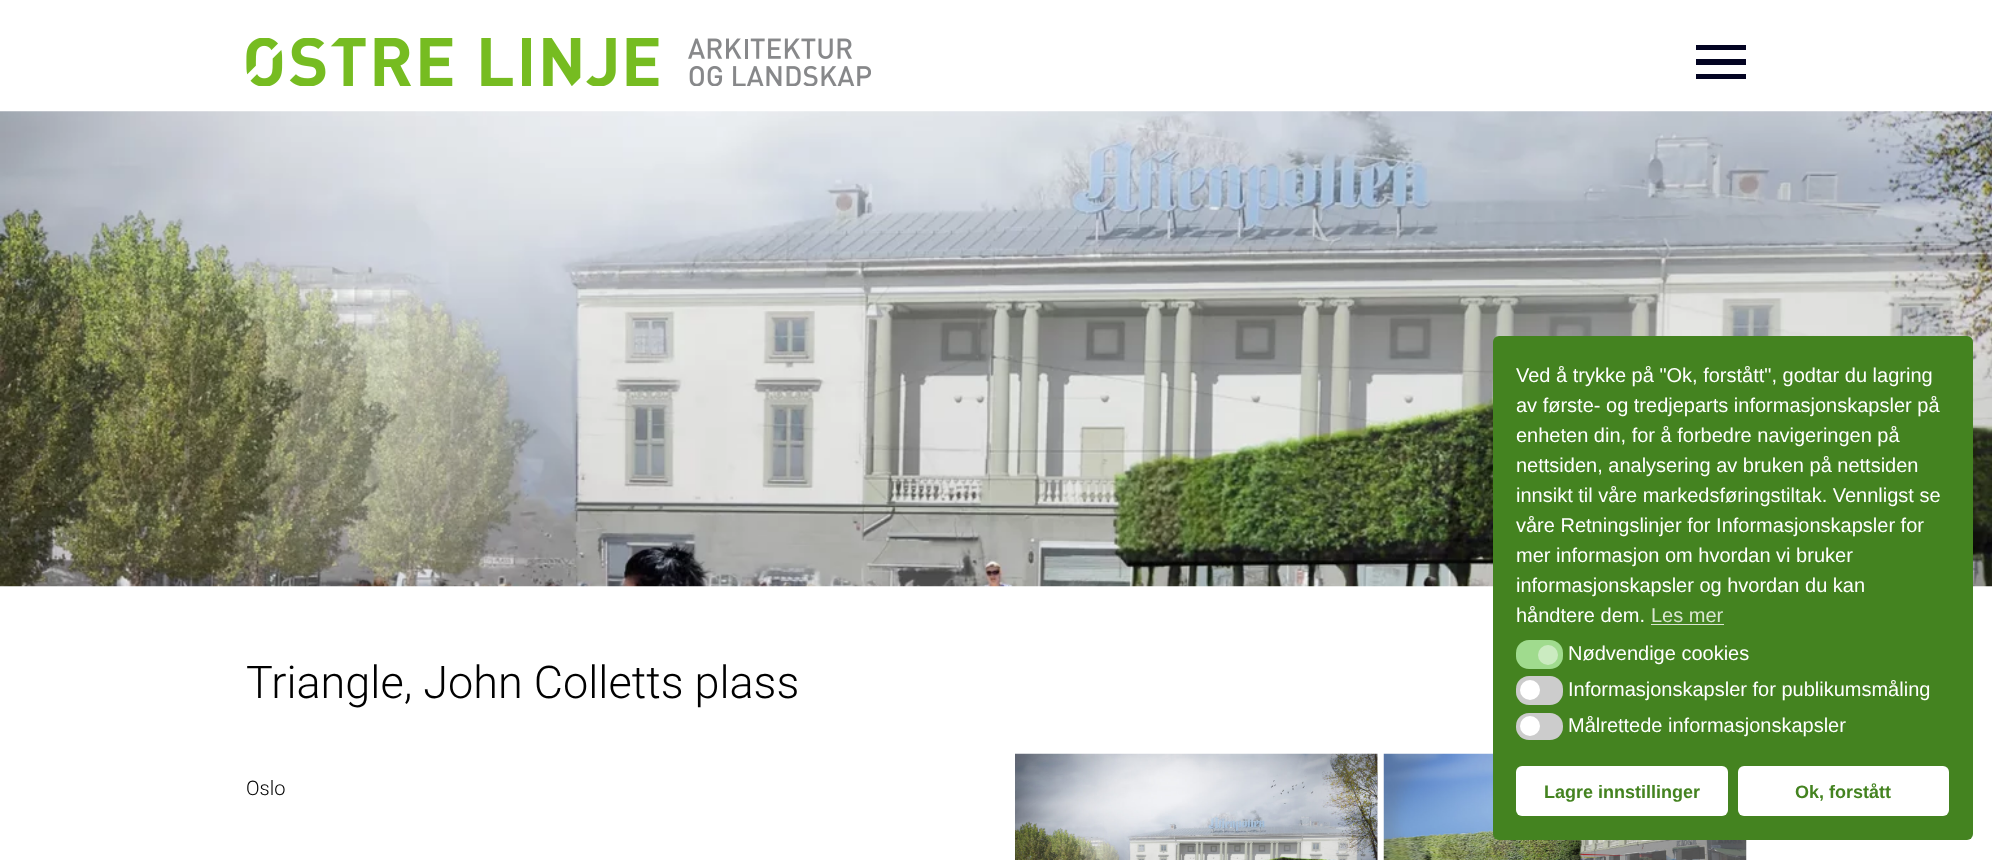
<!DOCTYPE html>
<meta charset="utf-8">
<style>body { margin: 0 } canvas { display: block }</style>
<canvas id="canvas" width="1992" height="860"></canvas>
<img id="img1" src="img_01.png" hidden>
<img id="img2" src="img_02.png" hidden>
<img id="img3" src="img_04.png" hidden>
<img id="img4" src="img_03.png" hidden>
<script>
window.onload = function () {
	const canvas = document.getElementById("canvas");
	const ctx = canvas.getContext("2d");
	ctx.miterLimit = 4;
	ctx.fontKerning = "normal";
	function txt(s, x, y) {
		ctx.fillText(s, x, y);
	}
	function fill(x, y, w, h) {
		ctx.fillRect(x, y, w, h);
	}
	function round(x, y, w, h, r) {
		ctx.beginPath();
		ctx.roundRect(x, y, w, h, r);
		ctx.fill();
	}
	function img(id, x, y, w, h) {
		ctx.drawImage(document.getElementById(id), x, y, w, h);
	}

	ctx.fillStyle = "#FFFFFF";
	fill(0, 0, 1992, 860);
	img("img1", 246, 38, 625, 48);
	ctx.fillStyle = "#030422";
	fill(1696, 45, 50, 5);
	fill(1696, 59, 50, 6);
	fill(1696, 74, 50, 5);
	img("img2", 0, 111, 1992, 476);
	img("img3", 1383, 753, 364, 107);
	ctx.fillStyle = "#448320";
	round(1493, 336, 480, 504, 6);
	ctx.fillStyle = "#DAE6D2";
	fill(1651, 624, 73, 1);
	ctx.fillStyle = "#A0DB8E";
	round(1516, 640, 47, 29, 13);
	ctx.fillStyle = "#CBEBC1";
	ctx.beginPath();
	ctx.arc(1548, 655, 10, 0, Math.PI * 2);
	ctx.fill();
	ctx.fillStyle = "#CCCCCC";
	round(1516, 676, 47, 29, 13);
	ctx.fillStyle = "#FFFFFF";
	ctx.beginPath();
	ctx.arc(1530, 690, 10, 0, Math.PI * 2);
	ctx.fill();
	ctx.fillStyle = "#CCCCCC";
	round(1516, 713, 47, 27, 13);
	ctx.fillStyle = "#FFFFFF";
	ctx.beginPath();
	ctx.arc(1530, 726, 10, 0, Math.PI * 2);
	ctx.fill();
	round(1516, 766, 212, 50, 6);
	round(1738, 766, 211, 50, 6);
	img("img4", 1015, 753, 363, 107);
	ctx.font = "300 45px Roboto";
	ctx.fillStyle = "#000000";
	txt("Triangle, John Colletts plass", 246, 698);
	ctx.font = "20px Liberation Sans";
	ctx.fillStyle = "#FFFFFF";
	txt("Ved å trykke på \"Ok, forstått\", godtar du lagring", 1516, 382);
	txt("av første- og tredjeparts informasjonskapsler på", 1516, 412);
	txt("enheten din, for å forbedre navigeringen på", 1516, 442);
	txt("nettsiden, analysering av bruken på nettsiden", 1516, 472);
	txt("innsikt til våre markedsføringstiltak. Vennligst se", 1516, 502);
	txt("våre Retningslinjer for Informasjonskapsler for", 1516, 532);
	txt("mer informasjon om hvordan vi bruker", 1516, 562);
	txt("informasjonskapsler og hvordan du kan", 1516, 592);
	txt("håndtere dem.", 1516, 622);
	ctx.fillStyle = "#DAE6D2";
	txt("Les mer", 1651, 622);
	ctx.fillStyle = "#FFFFFF";
	txt("Nødvendige cookies", 1568, 660);
	txt("Informasjonskapsler for publikumsmåling", 1568, 696);
	txt("Målrettede informasjonskapsler", 1568, 732);
	ctx.font = "bold 18px Liberation Sans";
	ctx.fillStyle = "#448320";
	txt("Lagre innstillinger", 1544, 798);
	txt("Ok, forstått", 1795, 798);
	ctx.font = "300 20px Roboto";
	ctx.fillStyle = "#000000";
	txt("Oslo", 246, 795);
};
</script>
